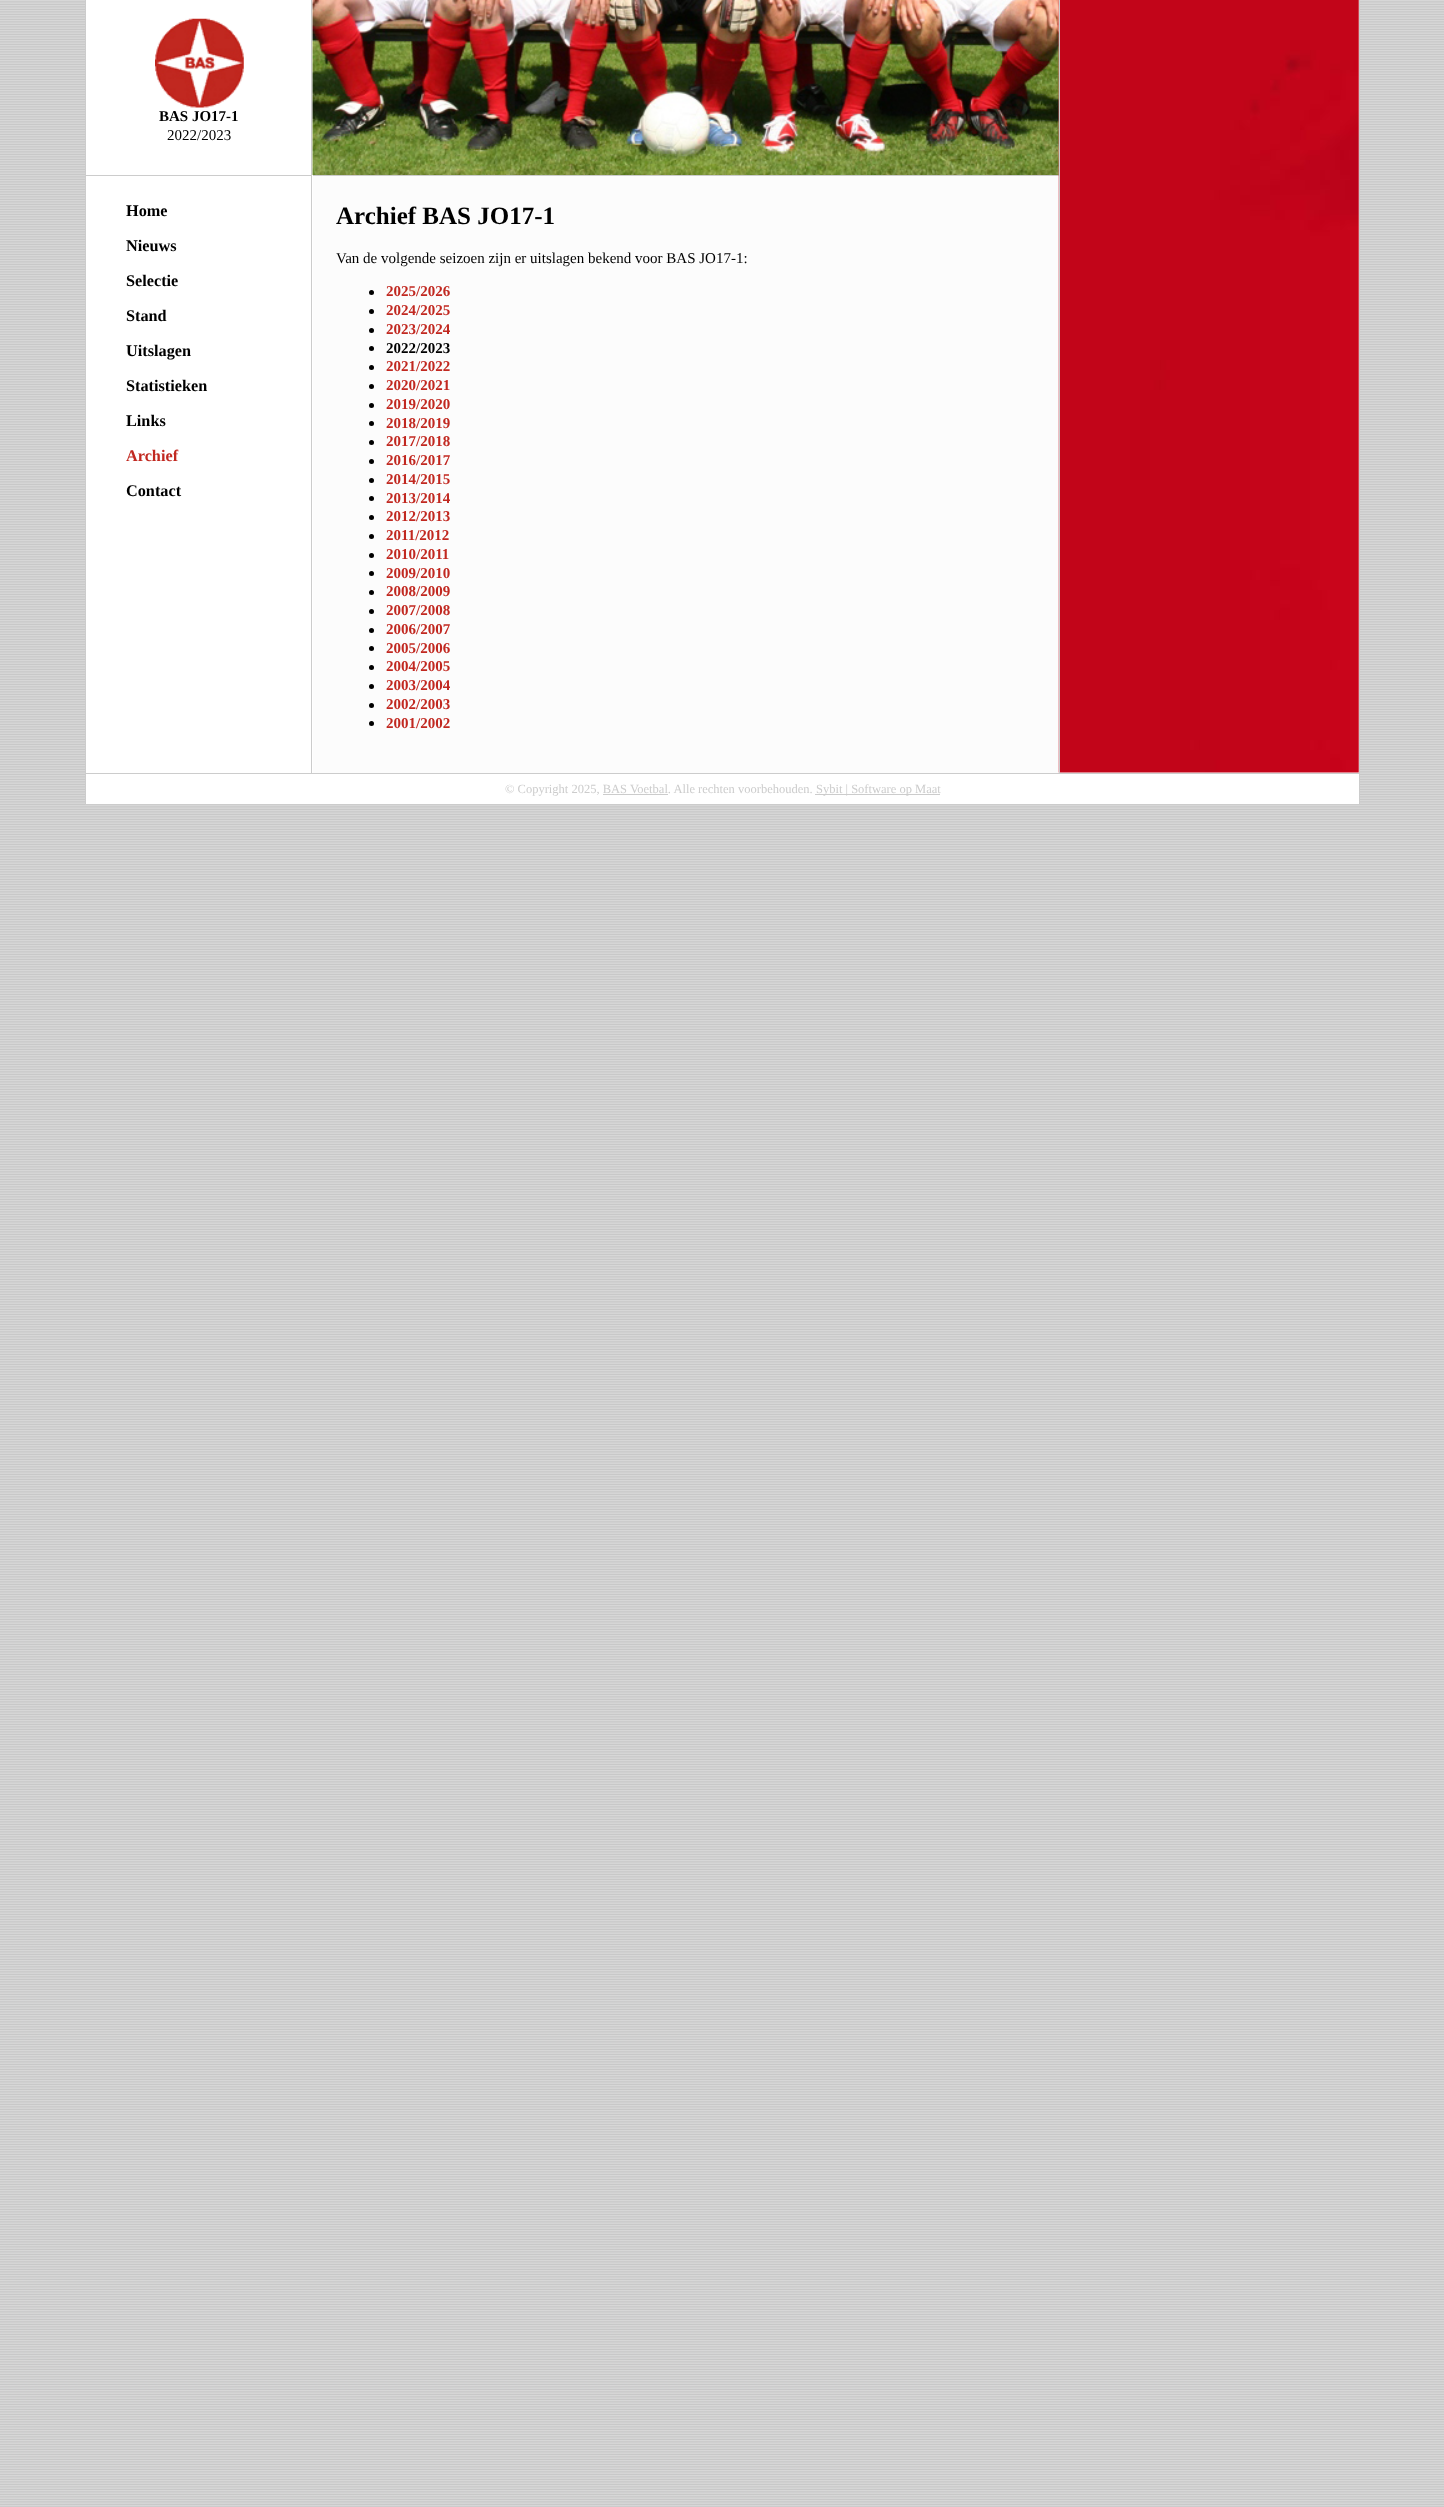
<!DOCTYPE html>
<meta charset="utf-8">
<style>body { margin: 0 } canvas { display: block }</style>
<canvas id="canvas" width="1444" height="2507"></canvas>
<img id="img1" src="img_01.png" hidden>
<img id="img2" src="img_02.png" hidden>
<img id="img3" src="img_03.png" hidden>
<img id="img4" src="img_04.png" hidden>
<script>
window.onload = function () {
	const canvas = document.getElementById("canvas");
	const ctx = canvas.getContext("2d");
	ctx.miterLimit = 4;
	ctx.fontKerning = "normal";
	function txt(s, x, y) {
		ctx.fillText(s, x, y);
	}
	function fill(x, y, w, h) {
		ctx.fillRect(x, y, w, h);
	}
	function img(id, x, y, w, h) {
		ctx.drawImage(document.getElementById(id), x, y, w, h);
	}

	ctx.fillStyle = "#FFFFFF";
	fill(0, 0, 1444, 2507);
	img("img1", 0, 0, 1444, 2507);
	fill(86, 0, 1273, 804);
	ctx.fillStyle = "#CCCCCC";
	fill(1359, 0, 1, 805);
	fill(85, 0, 1, 805);
	fill(311, 0, 1, 773);
	fill(86, 175, 225, 1);
	img("img2", 155, 18, 89, 90);
	ctx.fillStyle = "#FCFCFC";
	fill(313, 0, 746, 773);
	img("img3", 312, 0, 747, 175);
	ctx.fillStyle = "#CCCCCC";
	fill(313, 175, 746, 1);
	ctx.fillStyle = "#000000";
	ctx.beginPath();
	ctx.arc(371.5, 292.5, 2.5, 0, Math.PI * 2);
	ctx.fill();
	ctx.beginPath();
	ctx.arc(371.5, 311.5, 2.5, 0, Math.PI * 2);
	ctx.fill();
	ctx.beginPath();
	ctx.arc(371.5, 330.5, 2.5, 0, Math.PI * 2);
	ctx.fill();
	ctx.beginPath();
	ctx.arc(371.5, 348.5, 2.5, 0, Math.PI * 2);
	ctx.fill();
	ctx.beginPath();
	ctx.arc(371.5, 367.5, 2.5, 0, Math.PI * 2);
	ctx.fill();
	ctx.beginPath();
	ctx.arc(371.5, 386.5, 2.5, 0, Math.PI * 2);
	ctx.fill();
	ctx.beginPath();
	ctx.arc(371.5, 405.5, 2.5, 0, Math.PI * 2);
	ctx.fill();
	ctx.beginPath();
	ctx.arc(371.5, 423.5, 2.5, 0, Math.PI * 2);
	ctx.fill();
	ctx.beginPath();
	ctx.arc(371.5, 442.5, 2.5, 0, Math.PI * 2);
	ctx.fill();
	ctx.beginPath();
	ctx.arc(371.5, 461.5, 2.5, 0, Math.PI * 2);
	ctx.fill();
	ctx.beginPath();
	ctx.arc(371.5, 480.5, 2.5, 0, Math.PI * 2);
	ctx.fill();
	ctx.beginPath();
	ctx.arc(371.5, 498.5, 2.5, 0, Math.PI * 2);
	ctx.fill();
	ctx.beginPath();
	ctx.arc(371.5, 517.5, 2.5, 0, Math.PI * 2);
	ctx.fill();
	ctx.beginPath();
	ctx.arc(371.5, 536.5, 2.5, 0, Math.PI * 2);
	ctx.fill();
	ctx.beginPath();
	ctx.arc(371.5, 555.5, 2.5, 0, Math.PI * 2);
	ctx.fill();
	ctx.beginPath();
	ctx.arc(371.5, 573.5, 2.5, 0, Math.PI * 2);
	ctx.fill();
	ctx.beginPath();
	ctx.arc(371.5, 592.5, 2.5, 0, Math.PI * 2);
	ctx.fill();
	ctx.beginPath();
	ctx.arc(371.5, 611.5, 2.5, 0, Math.PI * 2);
	ctx.fill();
	ctx.beginPath();
	ctx.arc(371.5, 630.5, 2.5, 0, Math.PI * 2);
	ctx.fill();
	ctx.beginPath();
	ctx.arc(371.5, 648.5, 2.5, 0, Math.PI * 2);
	ctx.fill();
	ctx.beginPath();
	ctx.arc(371.5, 667.5, 2.5, 0, Math.PI * 2);
	ctx.fill();
	ctx.beginPath();
	ctx.arc(371.5, 686.5, 2.5, 0, Math.PI * 2);
	ctx.fill();
	ctx.beginPath();
	ctx.arc(371.5, 705.5, 2.5, 0, Math.PI * 2);
	ctx.fill();
	ctx.beginPath();
	ctx.arc(371.5, 723.5, 2.5, 0, Math.PI * 2);
	ctx.fill();
	img("img4", 1058, 0, 301, 773);
	ctx.fillStyle = "#CCCCCC";
	fill(1059, 0, 1, 773);
	fill(86, 773, 1273, 1);
	fill(86, 804, 1273, 1);
	fill(815, 794, 125, 1);
	fill(603, 794, 65, 1);
	ctx.font = "bold 15px Liberation Serif";
	ctx.fillStyle = "#000000";
	txt("BAS JO17-1", 159, 121);
	ctx.font = "15px Liberation Serif";
	txt("2022/2023", 167, 140);
	ctx.font = "bold 16.25px Liberation Serif";
	txt("Home", 126, 216);
	txt("Nieuws", 126, 251);
	txt("Selectie", 126, 286);
	txt("Stand", 126, 321);
	txt("Uitslagen", 126, 356);
	txt("Statistieken", 126, 391);
	txt("Links", 126, 426);
	ctx.fillStyle = "#C12820";
	txt("Archief", 126, 461);
	ctx.fillStyle = "#000000";
	txt("Contact", 126, 496);
	ctx.font = "bold 25px Liberation Serif";
	txt("Archief BAS JO17-1", 336, 224);
	ctx.font = "15px Liberation Serif";
	txt("Van de volgende seizoen zijn er uitslagen bekend voor BAS JO17-1:", 336, 263);
	ctx.font = "bold 15px Liberation Serif";
	ctx.fillStyle = "#C12820";
	txt("2025/2026", 386, 296);
	txt("2024/2025", 386, 315);
	txt("2023/2024", 386, 334);
	ctx.fillStyle = "#000000";
	txt("2022/2023", 386, 353);
	ctx.fillStyle = "#C12820";
	txt("2021/2022", 386, 371);
	txt("2020/2021", 386, 390);
	txt("2019/2020", 386, 409);
	txt("2018/2019", 386, 428);
	txt("2017/2018", 386, 446);
	txt("2016/2017", 386, 465);
	txt("2014/2015", 386, 484);
	txt("2013/2014", 386, 503);
	txt("2012/2013", 386, 521);
	txt("2011/2012", 386, 540);
	txt("2010/2011", 386, 559);
	txt("2009/2010", 386, 578);
	txt("2008/2009", 386, 596);
	txt("2007/2008", 386, 615);
	txt("2006/2007", 386, 634);
	txt("2005/2006", 386, 653);
	txt("2004/2005", 386, 671);
	txt("2003/2004", 386, 690);
	txt("2002/2003", 386, 709);
	txt("2001/2002", 386, 728);
	ctx.font = "12.5px Liberation Serif";
	ctx.fillStyle = "#CCCCCC";
	txt("© Copyright 2025, BAS Voetbal. Alle rechten voorbehouden.", 505, 793);
	txt("Sybit | Software op Maat", 816, 793);
};
</script>
